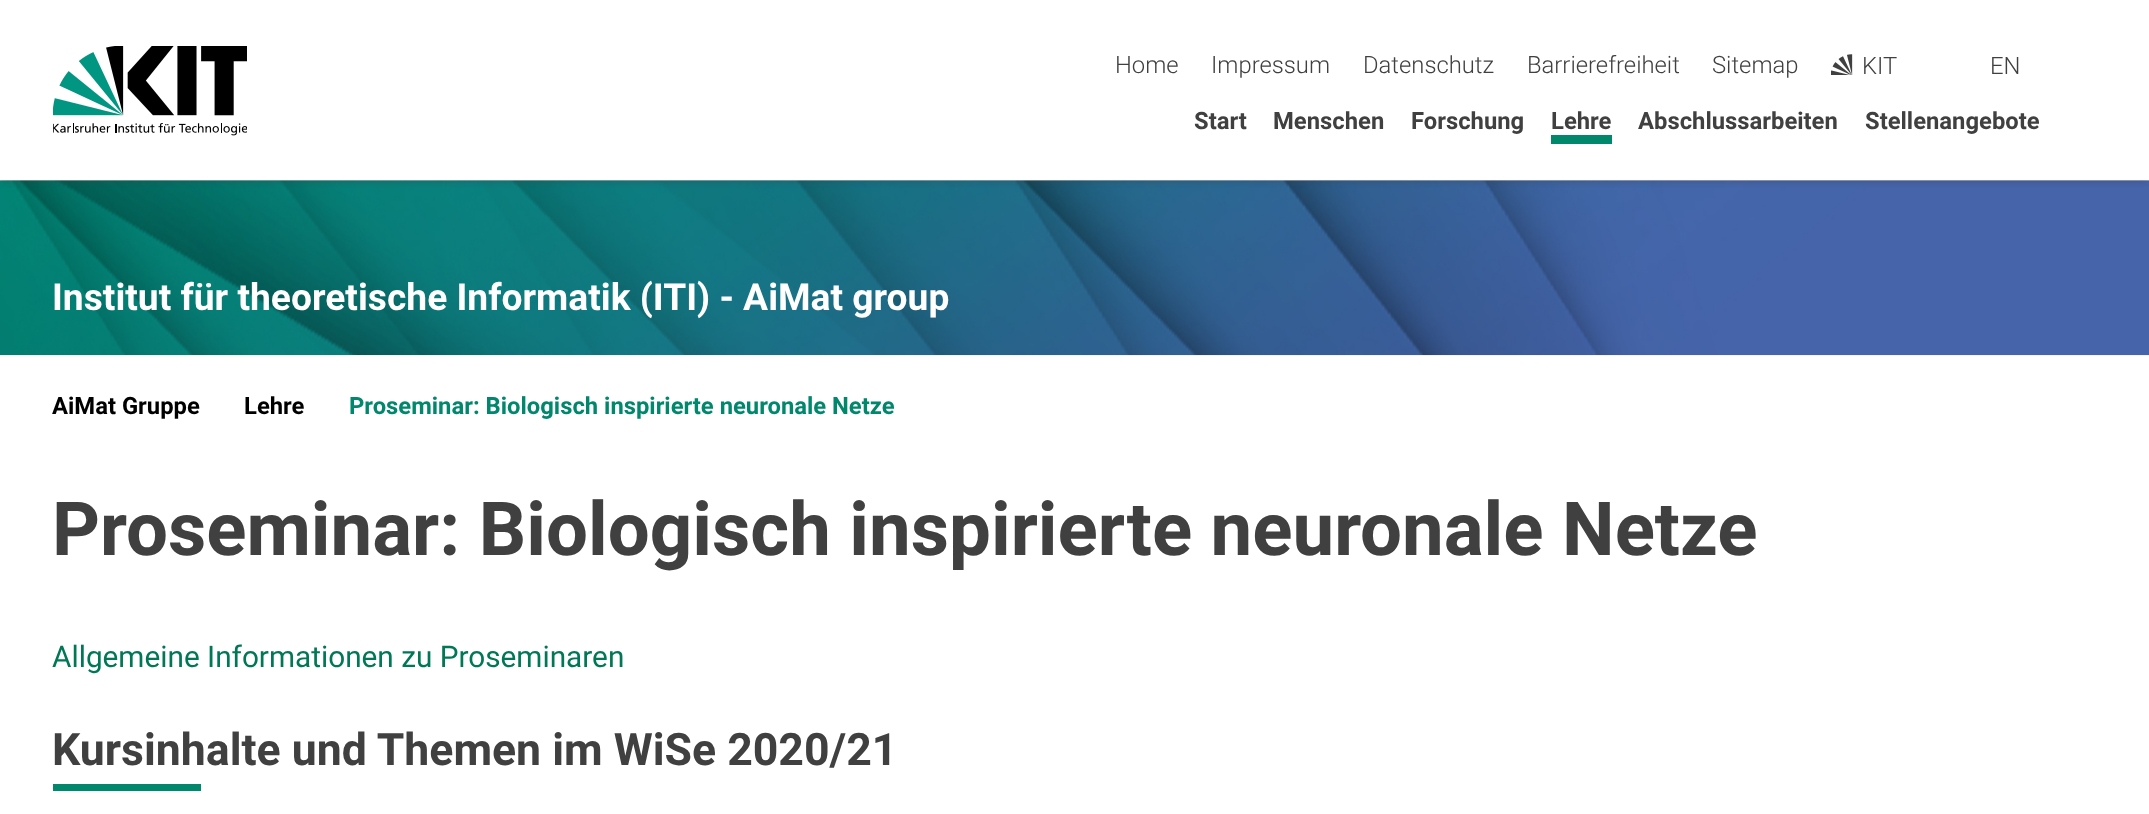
<!DOCTYPE html>
<meta charset="utf-8">
<style>body { margin: 0 } canvas { display: block }</style>
<canvas id="canvas" width="2149" height="814"></canvas>
<img id="img1" src="img_03.png" hidden>
<img id="img2" src="img_01.png" hidden>
<img id="img3" src="img_02.png" hidden>
<script>
window.onload = function () {
	const canvas = document.getElementById("canvas");
	const ctx = canvas.getContext("2d");
	ctx.miterLimit = 4;
	ctx.fontKerning = "normal";
	function txt(s, x, y) {
		ctx.fillText(s, x, y);
	}
	function fill(x, y, w, h) {
		ctx.fillRect(x, y, w, h);
	}
	function img(id, x, y, w, h) {
		ctx.drawImage(document.getElementById(id), x, y, w, h);
	}

	ctx.fillStyle = "#FFFFFF";
	fill(0, 0, 2149, 814);
	img("img1", 0, 180, 2149, 176);
	ctx.save();
	ctx.beginPath();
	ctx.rect(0, 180, 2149, 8);
	ctx.clip();
	ctx.fillStyle = "rgba(64, 64, 64, 0.5)";
	ctx.filter = "blur(4.5px)";
	ctx.beginPath();
	ctx.rect(0, 0, 2149, 180);
	ctx.fill();
	ctx.filter = "none";
	ctx.restore();
	img("img2", 53, 46, 194, 90);
	img("img3", 1831, 54, 22, 21);
	ctx.fillStyle = "#00876C";
	fill(1551, 135, 61, 9);
	fill(53, 784, 148, 7);
	ctx.font = "300 23.8px Roboto";
	ctx.fillStyle = "#404040";
	txt("Home", 1115, 73);
	txt("Impressum", 1211, 73);
	txt("Datenschutz", 1363, 73);
	txt("Barrierefreiheit", 1527, 73);
	txt("Sitemap", 1712, 73);
	txt("KIT", 1862, 74);
	txt("EN", 1990, 74);
	ctx.font = "bold 23.8px Roboto";
	txt("Start", 1194, 129);
	txt("Menschen", 1273, 129);
	txt("Forschung", 1411, 129);
	txt("Lehre", 1551, 129);
	txt("Abschlussarbeiten", 1638, 129);
	txt("Stellenangebote", 1865, 129);
	ctx.font = "bold 37.2px Roboto";
	ctx.fillStyle = "#FFFFFF";
	txt("Institut für theoretische Informatik (ITI) - AiMat group", 52, 310);
	ctx.font = "bold 23.8px Roboto";
	ctx.fillStyle = "#000000";
	txt("AiMat Gruppe", 52, 414);
	txt("Lehre", 244, 414);
	ctx.fillStyle = "#00876C";
	txt("Proseminar: Biologisch inspirierte neuronale Netze", 349, 414);
	ctx.font = "bold 74.4px Roboto";
	ctx.fillStyle = "#404040";
	txt("Proseminar: Biologisch inspirierte neuronale Netze", 52, 555);
	ctx.font = "29.75px Roboto";
	ctx.fillStyle = "#007755";
	txt("Allgemeine Informationen zu Proseminaren", 52, 667);
	ctx.font = "bold 44.6px Roboto";
	ctx.fillStyle = "#404040";
	txt("Kursinhalte und Themen im WiSe 2020/21", 52, 765);
};
</script>
